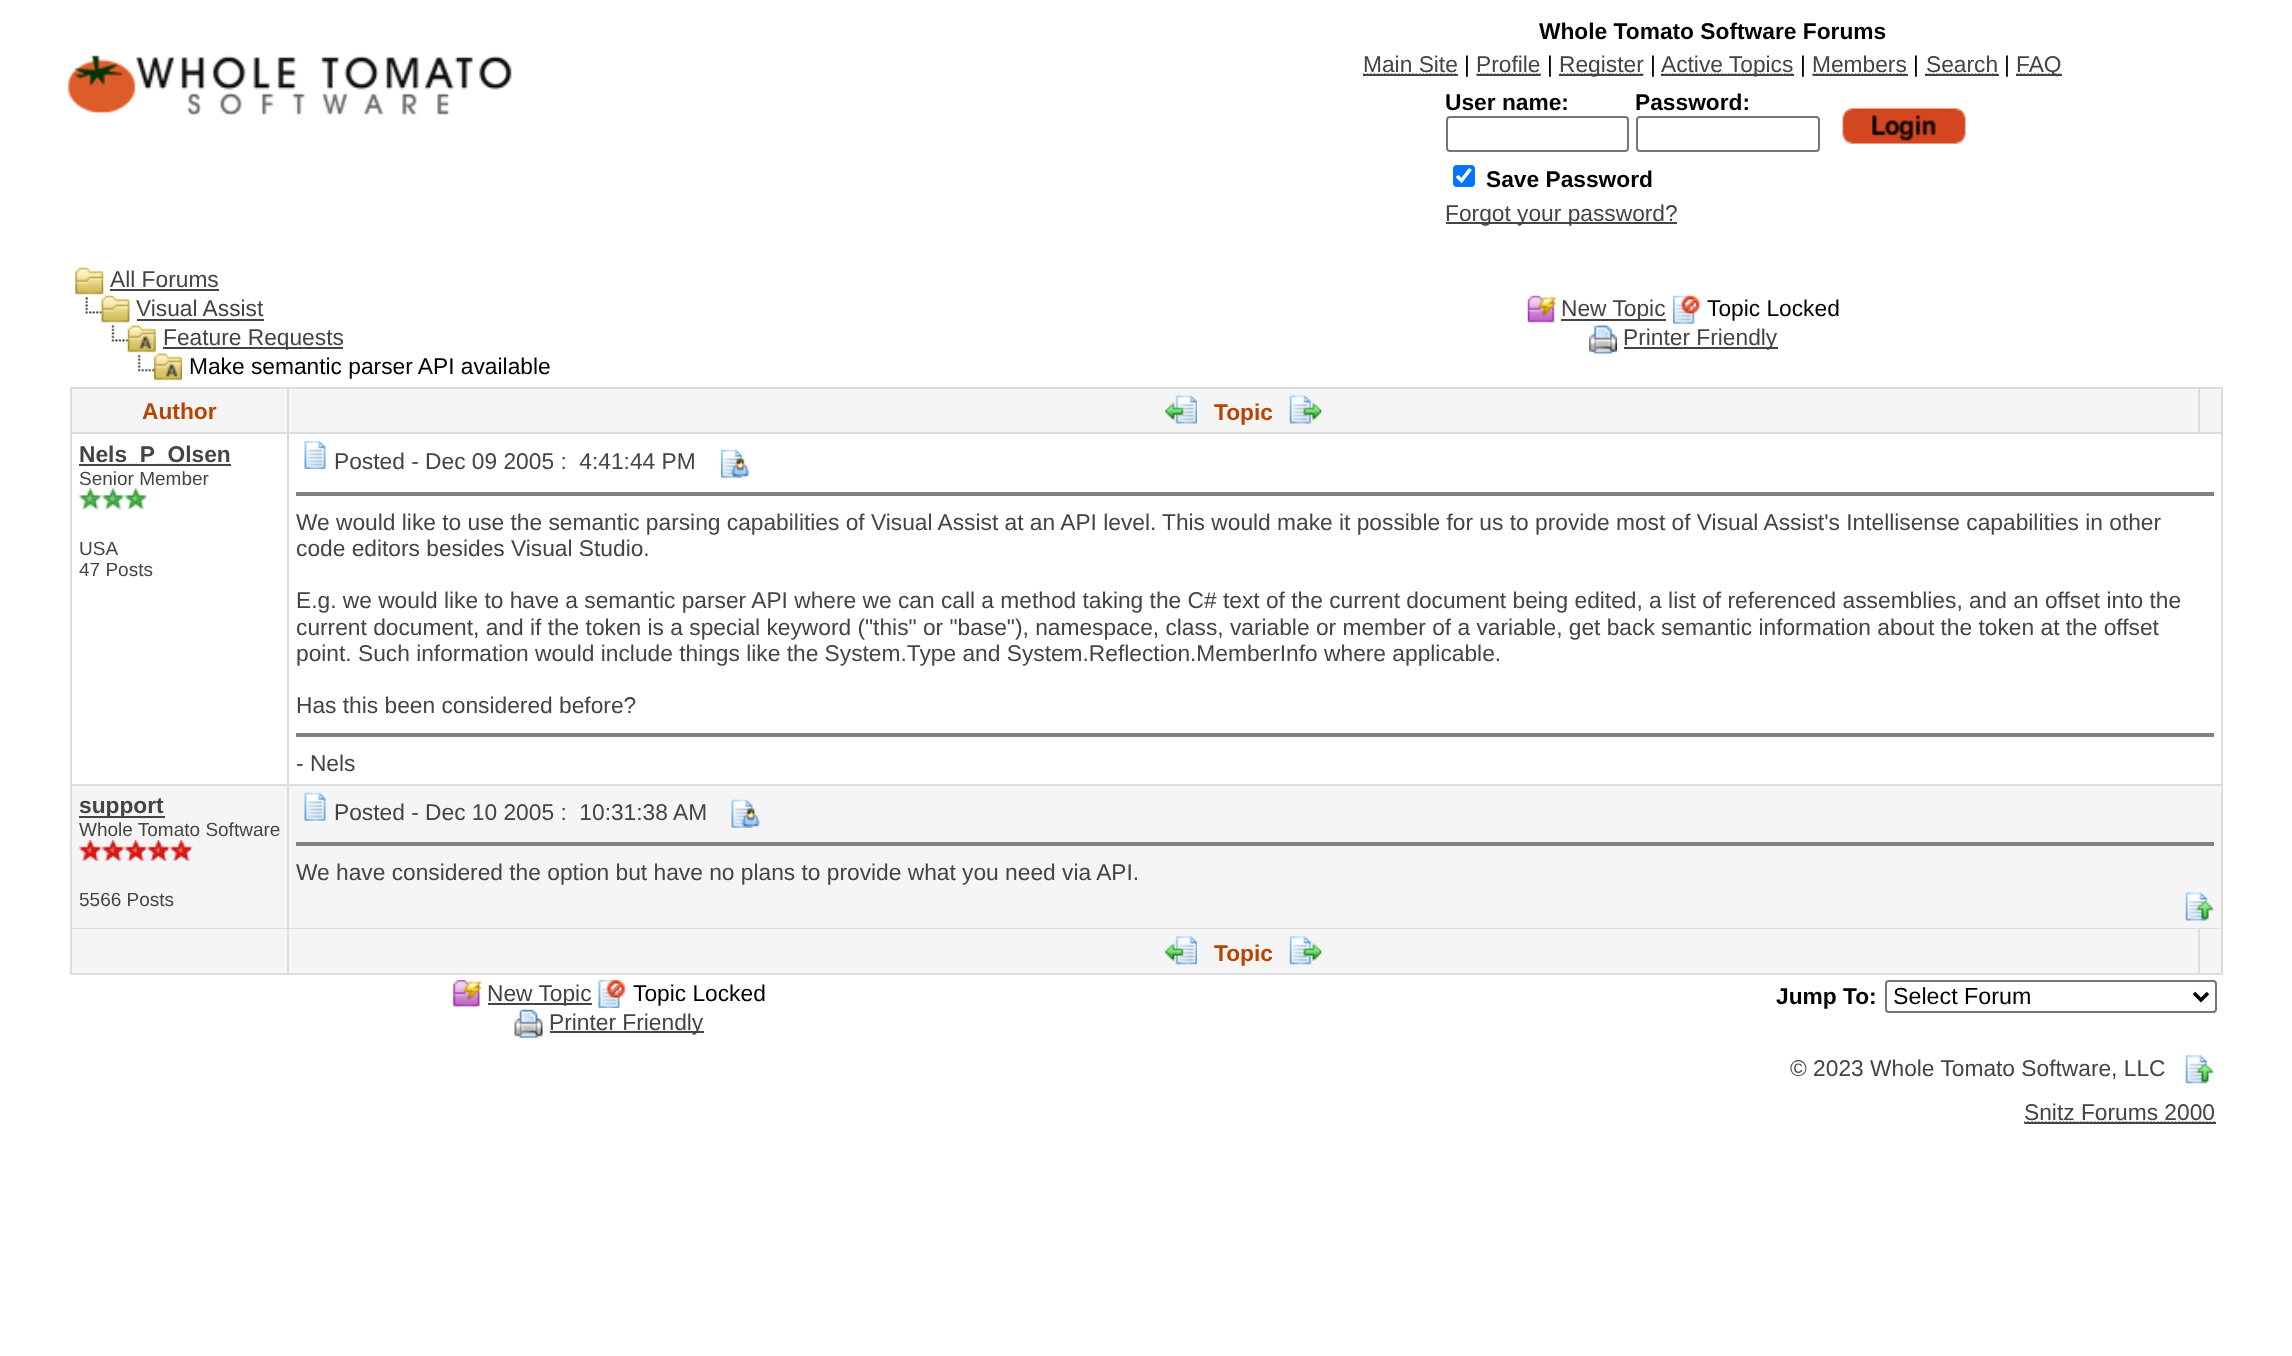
<!DOCTYPE html>
<meta charset="utf-8">
<style>body { margin: 0 } canvas { display: block }</style>
<canvas id="canvas" width="2292" height="1356"></canvas>
<img id="img1" src="img_01.png" hidden>
<img id="img2" src="img_02.png" hidden>
<img id="img3" src="img_03.png" hidden>
<img id="img4" src="img_04.png" hidden>
<img id="img5" src="img_05.png" hidden>
<img id="img6" src="img_06.png" hidden>
<img id="img7" src="img_07.png" hidden>
<img id="img8" src="img_08.png" hidden>
<img id="img9" src="img_09.png" hidden>
<img id="img10" src="img_10.png" hidden>
<img id="img11" src="img_11.png" hidden>
<img id="img12" src="img_12.png" hidden>
<img id="img13" src="img_13.png" hidden>
<img id="img14" src="img_14.png" hidden>
<img id="img15" src="img_15.png" hidden>
<img id="img16" src="img_16.png" hidden>
<img id="img17" src="img_17.png" hidden>
<img id="img18" src="img_18.png" hidden>
<img id="img19" src="img_19.png" hidden>
<img id="img20" src="img_20.png" hidden>
<img id="img21" src="img_21.png" hidden>
<img id="img22" src="img_22.png" hidden>
<img id="img23" src="img_23.png" hidden>
<img id="img24" src="img_24.png" hidden>
<img id="img25" src="img_25.png" hidden>
<img id="img26" src="img_26.png" hidden>
<img id="img27" src="img_27.png" hidden>
<img id="img28" src="img_28.png" hidden>
<img id="img29" src="img_29.png" hidden>
<img id="img30" src="img_30.png" hidden>
<img id="img31" src="img_31.png" hidden>
<img id="img32" src="img_32.png" hidden>
<img id="img33" src="img_33.png" hidden>
<script>
window.onload = function () {
	const canvas = document.getElementById("canvas");
	const ctx = canvas.getContext("2d");
	ctx.miterLimit = 4;
	ctx.fontKerning = "normal";
	function txt(s, x, y) {
		ctx.fillText(s, x, y);
	}
	function fill(x, y, w, h) {
		ctx.fillRect(x, y, w, h);
	}
	function round(x, y, w, h, r) {
		ctx.beginPath();
		ctx.roundRect(x, y, w, h, r);
		ctx.fill();
	}
	function img(id, x, y, w, h) {
		ctx.drawImage(document.getElementById(id), x, y, w, h);
	}

	ctx.fillStyle = "#FFFFFF";
	fill(0, 0, 2292, 1356);
	img("img1", 67, 55, 445, 61);
	ctx.beginPath();
	ctx.moveTo(1363, 74.5);
	ctx.lineTo(1457.5, 74.5);
	ctx.strokeStyle = "#444444";
	ctx.lineWidth = 1.8;
	ctx.setLineDash([1.75, 1.75]);
	ctx.stroke();
	ctx.fillStyle = "#444444";
	fill(1363, 74, 95, 2);
	ctx.beginPath();
	ctx.moveTo(1476.5, 74.5);
	ctx.lineTo(1541, 74.5);
	ctx.stroke();
	fill(1477, 74, 63, 2);
	ctx.beginPath();
	ctx.moveTo(1559.5, 74.5);
	ctx.lineTo(1644, 74.5);
	ctx.stroke();
	fill(1559, 74, 84, 2);
	ctx.beginPath();
	ctx.moveTo(1661.5, 74.5);
	ctx.lineTo(1794, 74.5);
	ctx.stroke();
	fill(1661, 74, 133, 2);
	ctx.beginPath();
	ctx.moveTo(1812.5, 74.5);
	ctx.lineTo(1907, 74.5);
	ctx.stroke();
	fill(1813, 74, 95, 2);
	ctx.beginPath();
	ctx.moveTo(1925.5, 74.5);
	ctx.lineTo(1998, 74.5);
	ctx.stroke();
	fill(1925, 74, 74, 2);
	ctx.beginPath();
	ctx.moveTo(2016.5, 74.5);
	ctx.lineTo(2062, 74.5);
	ctx.stroke();
	fill(2016, 74, 46, 2);
	ctx.beginPath();
	ctx.roundRect(1447, 117, 181, 34, 3);
	ctx.strokeStyle = "#767676";
	ctx.lineWidth = 2;
	ctx.setLineDash([]);
	ctx.stroke();
	ctx.beginPath();
	ctx.roundRect(1637, 117, 182, 34, 3);
	ctx.stroke();
	img("img2", 1842, 108, 124, 36);
	ctx.fillStyle = "#0075FF";
	round(1453, 165, 22, 22, 4);
	ctx.beginPath();
	ctx.moveTo(1457, 176);
	ctx.lineTo(1461.5, 180.5);
	ctx.lineTo(1470.5, 169);
	ctx.strokeStyle = "#FFFFFF";
	ctx.lineWidth = 3.6;
	ctx.stroke();
	ctx.fillStyle = "#444444";
	fill(1446, 222, 231, 2);
	img("img3", 75, 267, 29, 28);
	fill(110, 289, 109, 2);
	img("img4", 85, 297, 17, 17);
	img("img5", 101, 295, 29, 28);
	fill(137, 319, 127, 2);
	img("img6", 111, 325, 17, 17);
	img("img7", 127, 325, 29, 28);
	fill(163, 347, 180, 2);
	img("img8", 137, 355, 17, 17);
	img("img9", 154, 353, 28, 28);
	img("img10", 1527, 295, 29, 28);
	fill(1561, 319, 105, 2);
	img("img11", 1673, 295, 27, 29);
	img("img12", 1589, 325, 28, 29);
	fill(1624, 347, 154, 2);
	ctx.fillStyle = "#DDDDDD";
	fill(70, 387, 2153, 588);
	ctx.fillStyle = "#F5F5F5";
	fill(72, 389, 215, 43);
	fill(289, 389, 1909, 43);
	img("img13", 1165, 395, 32, 29);
	img("img14", 1289, 395, 33, 29);
	fill(2200, 389, 21, 43);
	ctx.fillStyle = "#FFFFFF";
	fill(72, 434, 215, 350);
	ctx.fillStyle = "#444444";
	fill(79, 464, 152, 2);
	img("img15", 78, 488, 24, 22);
	img("img16", 101, 488, 24, 22);
	img("img17", 124, 488, 23, 22);
	ctx.fillStyle = "#FFFFFF";
	fill(289, 434, 1932, 350);
	img("img18", 304, 441, 22, 28);
	img("img19", 721, 449, 28, 29);
	ctx.fillStyle = "#808080";
	fill(296, 492, 1918, 4);
	fill(296, 733, 1918, 4);
	ctx.fillStyle = "#F5F5F5";
	fill(72, 786, 215, 142);
	ctx.fillStyle = "#444444";
	fill(79, 816, 86, 2);
	img("img20", 78, 840, 24, 21);
	img("img21", 101, 840, 24, 21);
	img("img22", 124, 840, 23, 21);
	img("img23", 147, 840, 23, 21);
	img("img24", 169, 840, 24, 21);
	ctx.fillStyle = "#F5F5F5";
	fill(289, 786, 1932, 142);
	img("img25", 304, 792, 22, 29);
	img("img26", 731, 799, 29, 29);
	ctx.fillStyle = "#808080";
	fill(296, 842, 1918, 4);
	img("img27", 2185, 892, 29, 29);
	ctx.fillStyle = "#F5F5F5";
	fill(72, 929, 215, 44);
	fill(289, 929, 1909, 44);
	img("img28", 1165, 936, 32, 29);
	img("img29", 1289, 936, 33, 29);
	fill(2200, 929, 21, 44);
	img("img30", 453, 980, 29, 27);
	ctx.fillStyle = "#444444";
	fill(488, 1003, 104, 2);
	img("img31", 598, 980, 28, 28);
	img("img32", 514, 1009, 29, 29);
	fill(550, 1031, 154, 2);
	ctx.beginPath();
	ctx.roundRect(1886, 981, 330, 31, 3);
	ctx.strokeStyle = "#767676";
	ctx.lineWidth = 2;
	ctx.stroke();
	ctx.beginPath();
	ctx.moveTo(2194, 993);
	ctx.lineTo(2201, 1000);
	ctx.lineTo(2208, 993);
	ctx.strokeStyle = "#000000";
	ctx.lineWidth = 3.5;
	ctx.stroke();
	img("img33", 2185, 1055, 29, 29);
	ctx.beginPath();
	ctx.moveTo(2024, 1122.5);
	ctx.lineTo(2215, 1122.5);
	ctx.strokeStyle = "#444444";
	ctx.lineWidth = 1.8;
	ctx.setLineDash([1.75, 1.75]);
	ctx.stroke();
	fill(2025, 1122, 191, 2);
	ctx.font = "bold 22.75px Liberation Sans";
	ctx.fillStyle = "#000000";
	txt("Whole Tomato Software Forums", 1539, 39);
	ctx.font = "22.75px Liberation Sans";
	ctx.fillStyle = "#444444";
	txt("Main Site", 1363, 72);
	ctx.fillStyle = "#000000";
	txt("|", 1464, 72);
	ctx.fillStyle = "#444444";
	txt("Profile", 1476, 72);
	ctx.fillStyle = "#000000";
	txt("|", 1547, 72);
	ctx.fillStyle = "#444444";
	txt("Register", 1559, 72);
	ctx.fillStyle = "#000000";
	txt("|", 1650, 72);
	ctx.fillStyle = "#444444";
	txt("Active Topics", 1661, 72);
	ctx.fillStyle = "#000000";
	txt("|", 1800, 72);
	ctx.fillStyle = "#444444";
	txt("Members", 1812, 72);
	ctx.fillStyle = "#000000";
	txt("|", 1913, 72);
	ctx.fillStyle = "#444444";
	txt("Search", 1926, 72);
	ctx.fillStyle = "#000000";
	txt("|", 2004, 72);
	ctx.fillStyle = "#444444";
	txt("FAQ", 2016, 72);
	ctx.font = "bold 22.75px Liberation Sans";
	ctx.fillStyle = "#000000";
	txt("User name:", 1445, 110);
	txt("Password:", 1635, 110);
	txt("Save Password", 1486, 187);
	ctx.font = "22.75px Liberation Sans";
	ctx.fillStyle = "#444444";
	txt("Forgot your password?", 1445, 221);
	txt("All Forums", 110, 287);
	txt("Visual Assist", 136, 316);
	txt("Feature Requests", 163, 345);
	ctx.fillStyle = "#000000";
	txt("Make semantic parser API available", 189, 374);
	ctx.fillStyle = "#444444";
	txt("New Topic", 1561, 316);
	ctx.fillStyle = "#000000";
	txt("Topic Locked", 1707, 316);
	ctx.fillStyle = "#444444";
	txt("Printer Friendly", 1623, 345);
	ctx.font = "bold 22.75px Liberation Sans";
	ctx.fillStyle = "#B84401";
	txt("Author", 142, 419);
	txt("Topic", 1214, 420);
	ctx.fillStyle = "#444444";
	txt("Nels_P_Olsen", 79, 462);
	ctx.font = "19px Liberation Sans";
	txt("Senior Member", 79, 485);
	txt("USA", 79, 555);
	txt("47 Posts", 79, 576);
	ctx.font = "22.75px Liberation Sans";
	txt("Posted - Dec 09 2005 :  4:41:44 PM", 334, 469);
	txt("We would like to use the semantic parsing capabilities of Visual Assist at an API level.", 296, 530);
	txt("This would make it possible for us to provide most of Visual Assist's Intellisense capabilities in other", 1162, 530);
	txt("code editors besides Visual Studio.", 296, 556);
	txt("E.g. we would like to have a semantic parser API where we can call a method taking the C# text of the current document being edited, a list of referenced assemblies, and an offset into the", 296, 608);
	txt("current document, and if the token is a special keyword (\"this\" or \"base\"), namespace, class, variable or member of a variable, get back semantic information about the token at the offset", 296, 635);
	txt("point. Such information would include things like the System.Type and System.Reflection.MemberInfo where applicable.", 296, 661);
	txt("Has this been considered before?", 296, 713);
	txt("- Nels", 296, 771);
	ctx.font = "bold 22.75px Liberation Sans";
	txt("support", 79, 813);
	ctx.font = "19px Liberation Sans";
	txt("Whole Tomato Software", 79, 836);
	txt("5566 Posts", 79, 906);
	ctx.font = "22.75px Liberation Sans";
	txt("Posted - Dec 10 2005 :  10:31:38 AM", 334, 820);
	txt("We have considered the option but have no plans to provide what you need via API.", 296, 880);
	ctx.font = "bold 22.75px Liberation Sans";
	ctx.fillStyle = "#B84401";
	txt("Topic", 1214, 961);
	ctx.font = "22.75px Liberation Sans";
	ctx.fillStyle = "#444444";
	txt("New Topic", 487, 1001);
	ctx.fillStyle = "#000000";
	txt("Topic Locked", 633, 1001);
	ctx.fillStyle = "#444444";
	txt("Printer Friendly", 549, 1030);
	ctx.font = "bold 22.75px Liberation Sans";
	ctx.fillStyle = "#000000";
	txt("Jump To:", 1776, 1004);
	ctx.font = "23.25px Liberation Sans";
	txt("Select Forum", 1893, 1004);
	ctx.font = "22.75px Liberation Sans";
	ctx.fillStyle = "#444444";
	txt("© 2023 Whole Tomato Software, LLC", 1790, 1076);
	txt("Snitz Forums 2000", 2024, 1120);
};
</script>
